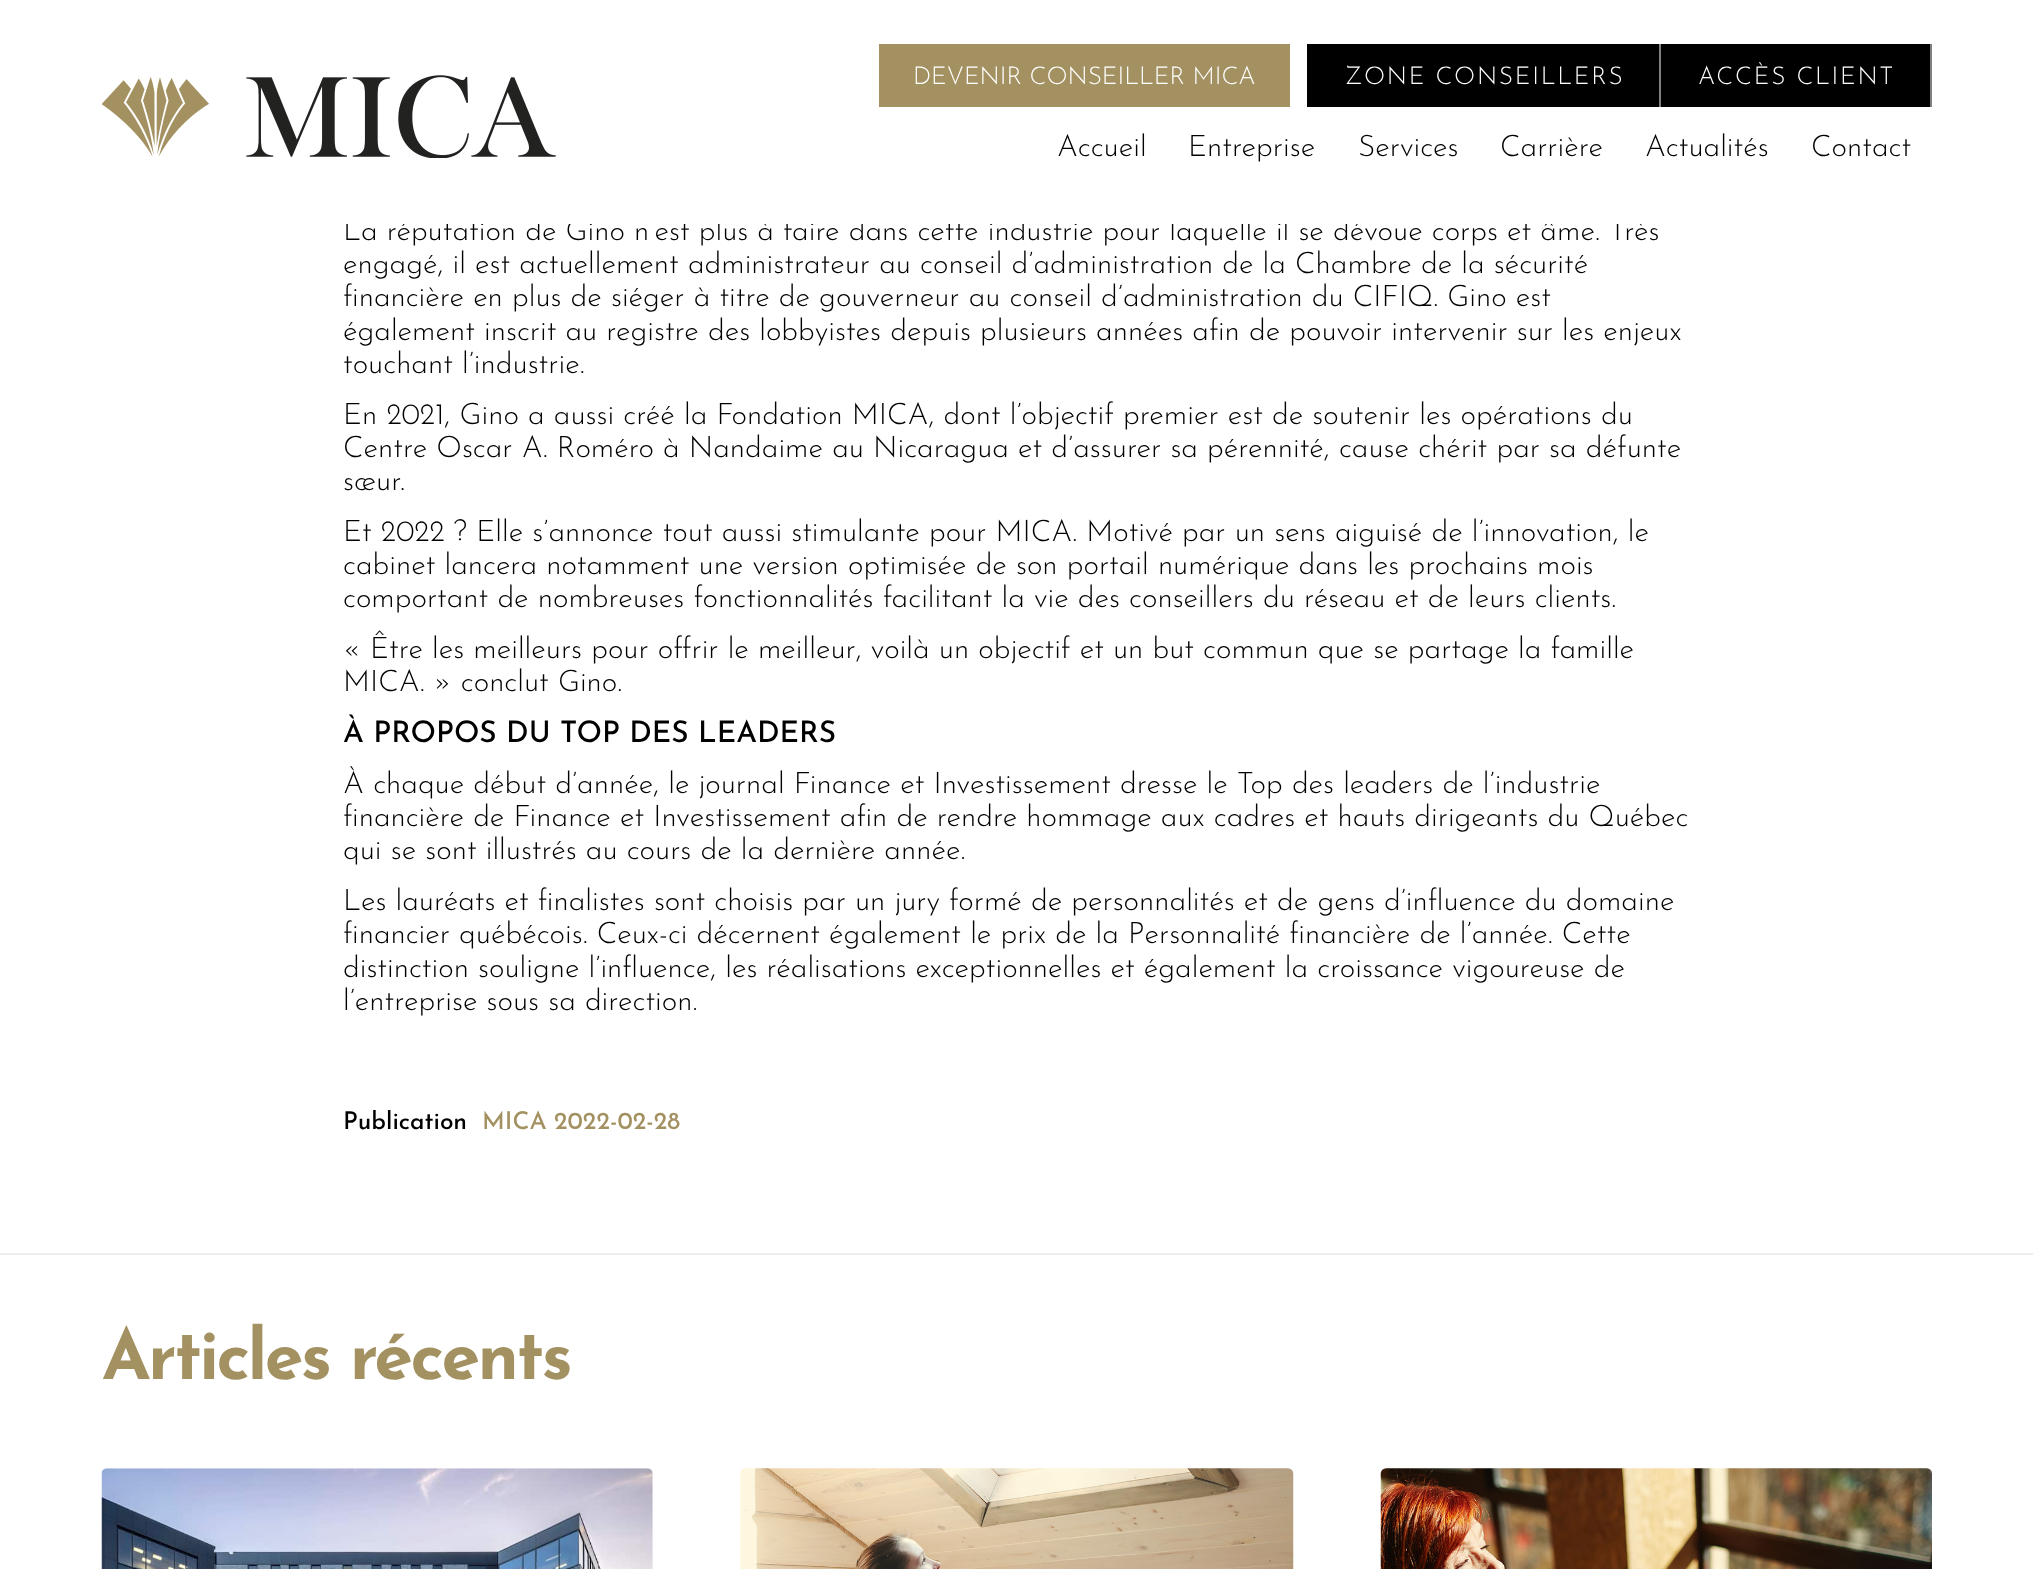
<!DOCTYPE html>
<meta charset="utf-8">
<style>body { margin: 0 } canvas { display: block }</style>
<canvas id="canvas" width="2033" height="1569"></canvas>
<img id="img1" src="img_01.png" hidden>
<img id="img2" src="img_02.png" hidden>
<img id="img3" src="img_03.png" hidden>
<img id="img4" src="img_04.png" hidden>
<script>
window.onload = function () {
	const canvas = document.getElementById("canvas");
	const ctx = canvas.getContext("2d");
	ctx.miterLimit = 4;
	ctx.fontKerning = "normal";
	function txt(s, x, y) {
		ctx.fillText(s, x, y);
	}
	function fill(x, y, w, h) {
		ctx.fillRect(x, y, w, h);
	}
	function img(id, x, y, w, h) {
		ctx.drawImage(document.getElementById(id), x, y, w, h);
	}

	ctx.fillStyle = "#FFFFFF";
	fill(0, 0, 2033, 1569);
	img("img1", 102, 75, 455, 83);
	ctx.fillStyle = "#A39161";
	fill(879, 44, 411, 63);
	ctx.fillStyle = "#000000";
	fill(1307, 44, 352, 63);
	ctx.fillStyle = "#808080";
	fill(1659, 44, 2, 63);
	ctx.fillStyle = "#000000";
	fill(1661, 44, 269, 63);
	ctx.fillStyle = "#808080";
	fill(1930, 44, 2, 63);
	ctx.fillStyle = "#ECEFF2";
	fill(0, 1253, 2033, 2);
	img("img2", 101, 1468, 552, 101);
	img("img3", 740, 1468, 554, 101);
	img("img4", 1380, 1468, 552, 101);
	ctx.font = "300 24.5px Josefin Sans";
	ctx.fillStyle = "#FFFFFF";
	txt("DEVENIR CONSEILLER MICA", 913, 84);
	ctx.letterSpacing = "1.75px";
	txt("ZONE CONSEILLERS", 1345, 84);
	txt("ACCÈS CLIENT", 1698, 84);
	ctx.letterSpacing = "0px";
	ctx.font = "300 29.75px Josefin Sans";
	ctx.fillStyle = "#000000";
	txt("Accueil", 1057, 156);
	txt("Entreprise", 1188, 156);
	txt("Services", 1358, 156);
	txt("Carrière", 1500, 156);
	txt("Actualités", 1645, 156);
	txt("Contact", 1811, 156);
	txt("La réputation de Gino n’est plus à faire dans cette industrie pour laquelle il se dévoue corps et âme. Très", 343, 240);
	ctx.fillStyle = "#FFFFFF";
	fill(346, 217, 1295, 7);
	ctx.fillStyle = "#000000";
	txt("engagé, il est actuellement administrateur au conseil d’administration de la Chambre de la sécurité", 343, 273);
	txt("financière en plus de siéger à titre de gouverneur au conseil d’administration du CIFIQ. Gino est", 343, 306);
	txt("également inscrit au registre des lobbyistes depuis plusieurs années afin de pouvoir intervenir sur les enjeux", 343, 340);
	txt("touchant l’industrie.", 343, 373);
	txt("En 2021, Gino a aussi créé la Fondation MICA, dont l’objectif premier est de soutenir les opérations du", 343, 424);
	txt("Centre Oscar A. Roméro à Nandaime au Nicaragua et d’assurer sa pérennité, cause chérit par sa défunte", 343, 457);
	txt("sœur.", 343, 490);
	txt("Et 2022 ? Elle s’annonce tout aussi stimulante pour MICA. Motivé par un sens aiguisé de l’innovation, le", 343, 541);
	txt("cabinet lancera notamment une version optimisée de son portail numérique dans les prochains mois", 343, 574);
	txt("comportant de nombreuses fonctionnalités facilitant la vie des conseillers du réseau et de leurs clients.", 343, 607);
	txt("« Être les meilleurs pour offrir le meilleur, voilà un objectif et un but commun que se partage la famille", 343, 658);
	txt("MICA. » conclut Gino.", 343, 691);
	ctx.font = "500 29.75px Josefin Sans";
	txt("À PROPOS DU TOP DES LEADERS", 343, 742);
	ctx.font = "300 29.75px Josefin Sans";
	txt("À chaque début d’année, le journal Finance et Investissement dresse le Top des leaders de l’industrie", 343, 793);
	txt("financière de Finance et Investissement afin de rendre hommage aux cadres et hauts dirigeants du Québec", 343, 826);
	txt("qui se sont illustrés au cours de la dernière année.", 343, 859);
	txt("Les lauréats et finalistes sont choisis par un jury formé de personnalités et de gens d’influence du domaine", 343, 910);
	txt("financier québécois. Ceux-ci décernent également le prix de la Personnalité financière de l’année. Cette", 343, 943);
	txt("distinction souligne l’influence, les réalisations exceptionnelles et également la croissance vigoureuse de", 343, 977);
	txt("l’entreprise sous sa direction.", 343, 1010);
	ctx.font = "500 24.5px Josefin Sans";
	txt("Publication", 343, 1129);
	ctx.fillStyle = "#A39161";
	txt("MICA", 482, 1129);
	txt("2022-02-28", 554, 1129);
	ctx.letterSpacing = "-2.6px";
	ctx.font = "bold 70px Josefin Sans";
	txt("Articles récents", 102, 1379);
};
</script>
